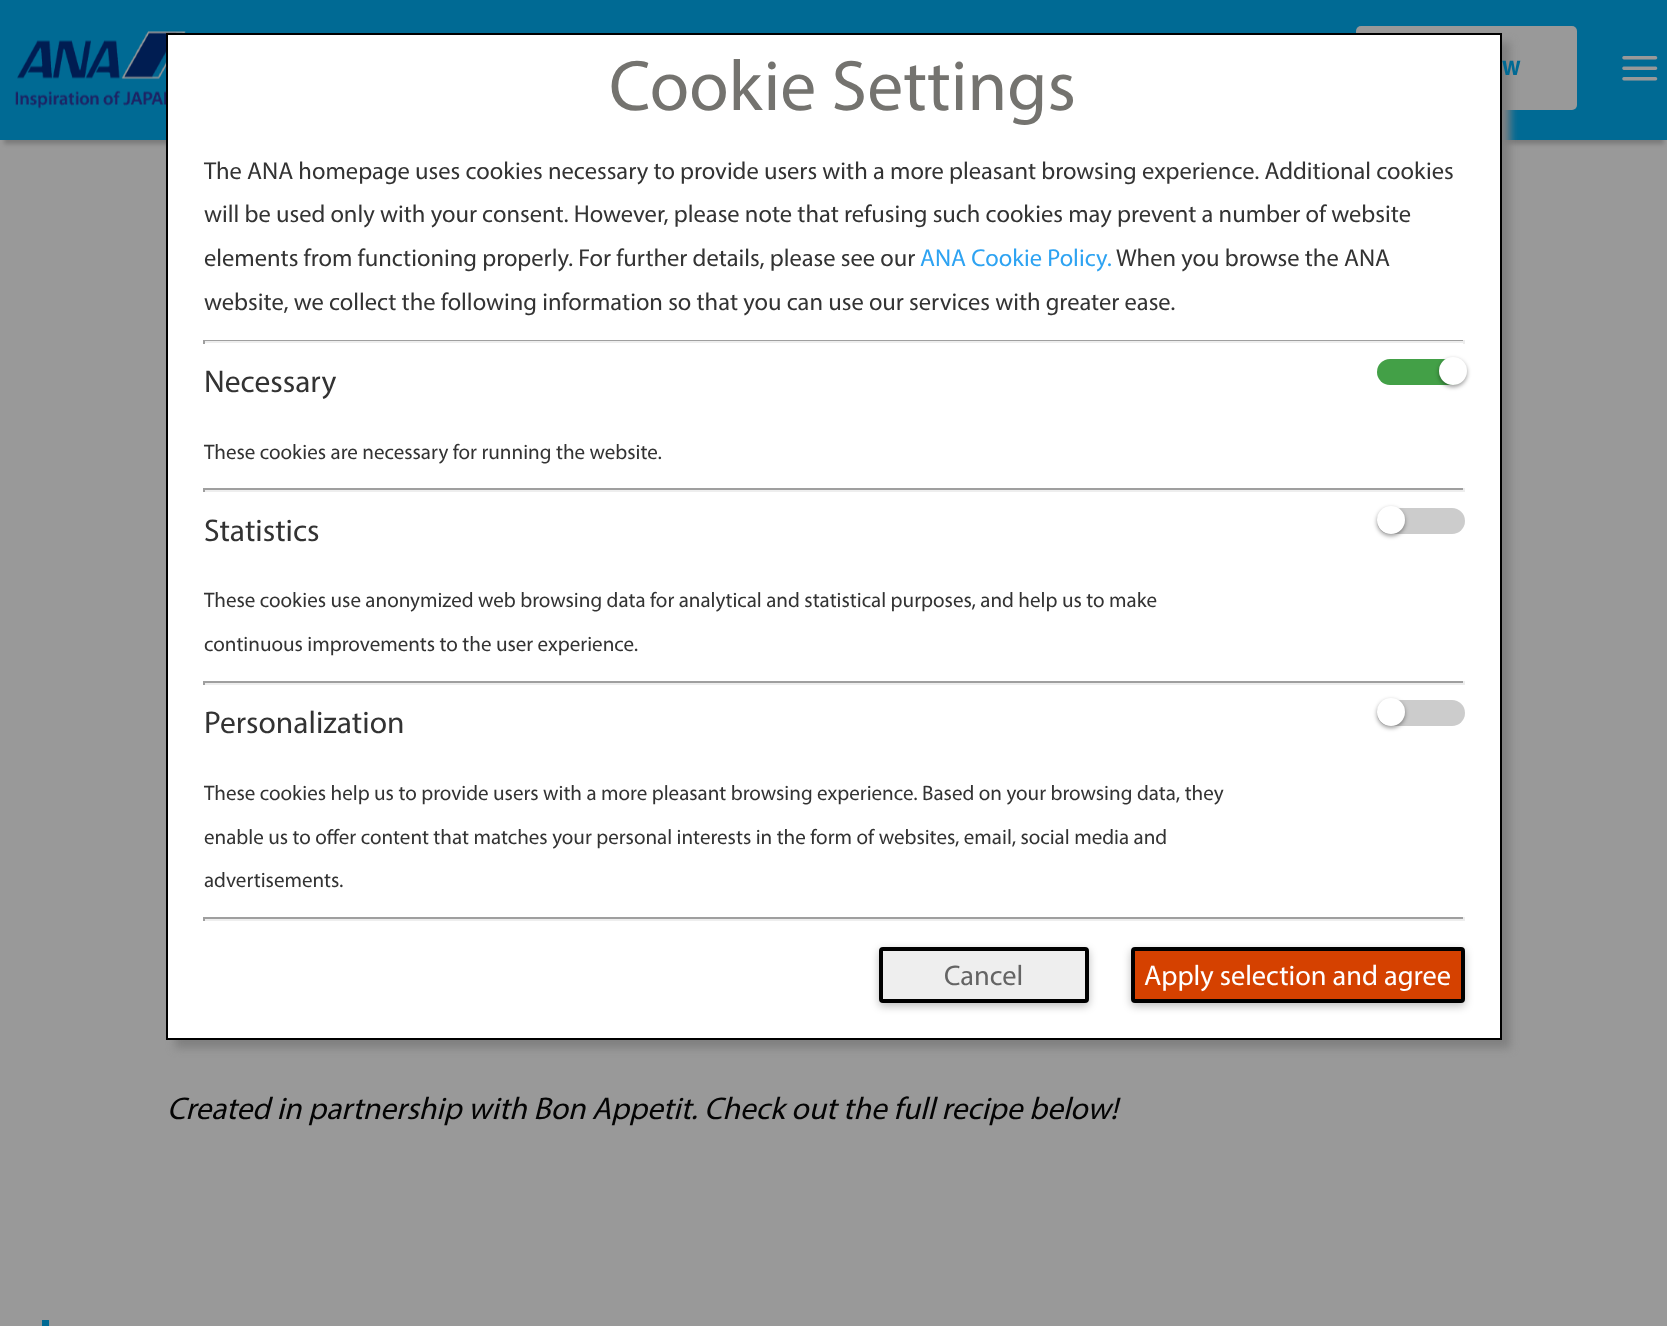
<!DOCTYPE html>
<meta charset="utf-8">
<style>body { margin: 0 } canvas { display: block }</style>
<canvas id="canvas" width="1667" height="1326"></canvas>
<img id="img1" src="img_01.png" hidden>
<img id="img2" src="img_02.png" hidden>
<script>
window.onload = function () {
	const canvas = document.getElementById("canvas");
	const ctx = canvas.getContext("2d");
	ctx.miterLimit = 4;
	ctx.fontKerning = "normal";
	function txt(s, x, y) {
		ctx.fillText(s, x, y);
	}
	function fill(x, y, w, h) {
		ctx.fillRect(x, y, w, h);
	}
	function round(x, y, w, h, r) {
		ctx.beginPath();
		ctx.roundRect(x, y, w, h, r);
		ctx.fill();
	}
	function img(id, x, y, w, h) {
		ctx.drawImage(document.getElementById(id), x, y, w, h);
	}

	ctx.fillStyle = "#999999";
	fill(0, 0, 1667, 1326);
	ctx.fillStyle = "rgba(0, 0, 0, 0.2)";
	ctx.filter = "blur(2px)";
	ctx.beginPath();
	ctx.rect(4, 11, 1660, 133);
	ctx.fill();
	ctx.filter = "none";
	ctx.fillStyle = "#006A94";
	fill(0, 0, 1667, 140);
	img("img1", 15, 31, 171, 78);
	ctx.fillStyle = "#999999";
	round(1356, 26, 221, 84, 5);
	ctx.fillStyle = "#808080";
	ctx.filter = "blur(4.5px)";
	ctx.beginPath();
	ctx.rect(175, 42, 1335, 1006);
	ctx.fill();
	ctx.filter = "none";
	ctx.fillStyle = "#FFFFFF";
	ctx.beginPath();
	ctx.rect(167, 34, 1334, 1005);
	ctx.fill();
	ctx.strokeStyle = "#000000";
	ctx.lineWidth = 2;
	ctx.stroke();
	ctx.fillStyle = "#9F9F9F";
	fill(203, 340, 1262, 1);
	ctx.fillStyle = "#EEEEEE";
	fill(1463, 340, 2, 4);
	fill(203, 341, 1262, 2);
	ctx.fillStyle = "#9F9F9F";
	fill(203, 340, 2, 4);
	ctx.fillStyle = "#43A047";
	round(1377, 359, 88, 26, 13);
	ctx.fillStyle = "rgba(0, 0, 0, 0.4)";
	ctx.filter = "blur(2px)";
	ctx.beginPath();
	ctx.roundRect(1439, 359, 28, 28, 14);
	ctx.fill();
	ctx.filter = "none";
	ctx.fillStyle = "#FFFFFF";
	ctx.beginPath();
	ctx.arc(1453, 371, 14, 0, Math.PI * 2);
	ctx.fill();
	ctx.fillStyle = "#9F9F9F";
	fill(203, 488, 1262, 2);
	ctx.fillStyle = "#EEEEEE";
	fill(1463, 488, 2, 4);
	fill(203, 490, 1262, 2);
	ctx.fillStyle = "#9F9F9F";
	fill(203, 488, 2, 4);
	ctx.fillStyle = "#CCCCCC";
	round(1377, 508, 88, 26, 13);
	ctx.fillStyle = "rgba(0, 0, 0, 0.4)";
	ctx.filter = "blur(2px)";
	ctx.beginPath();
	ctx.roundRect(1377, 508, 28, 28, 14);
	ctx.fill();
	ctx.filter = "none";
	ctx.fillStyle = "#FFFFFF";
	ctx.beginPath();
	ctx.arc(1391, 520, 14, 0, Math.PI * 2);
	ctx.fill();
	ctx.fillStyle = "#9F9F9F";
	fill(203, 681, 1262, 2);
	ctx.fillStyle = "#EEEEEE";
	fill(1463, 681, 2, 4);
	fill(203, 683, 1262, 2);
	ctx.fillStyle = "#9F9F9F";
	fill(203, 681, 2, 4);
	ctx.fillStyle = "#CCCCCC";
	round(1377, 700, 88, 26, 13);
	ctx.fillStyle = "rgba(0, 0, 0, 0.4)";
	ctx.filter = "blur(2px)";
	ctx.beginPath();
	ctx.roundRect(1377, 700, 28, 28, 14);
	ctx.fill();
	ctx.filter = "none";
	ctx.fillStyle = "#FFFFFF";
	ctx.beginPath();
	ctx.arc(1391, 712, 14, 0, Math.PI * 2);
	ctx.fill();
	ctx.fillStyle = "#9F9F9F";
	fill(203, 917, 1262, 2);
	ctx.fillStyle = "#EEEEEE";
	fill(1463, 917, 2, 4);
	fill(203, 919, 1262, 2);
	ctx.fillStyle = "#9F9F9F";
	fill(203, 917, 2, 4);
	ctx.fillStyle = "rgba(0, 0, 0, 0.26)";
	ctx.filter = "blur(4.5px)";
	ctx.beginPath();
	ctx.roundRect(879, 950, 210, 56, 4);
	ctx.fill();
	ctx.filter = "none";
	ctx.fillStyle = "#EEEEEE";
	ctx.beginPath();
	ctx.roundRect(881, 949, 206, 52, 2);
	ctx.fill();
	ctx.lineWidth = 4;
	ctx.stroke();
	ctx.fillStyle = "rgba(0, 0, 0, 0.26)";
	ctx.filter = "blur(4.5px)";
	ctx.beginPath();
	ctx.roundRect(1131, 950, 334, 56, 4);
	ctx.fill();
	ctx.filter = "none";
	ctx.fillStyle = "#D54100";
	ctx.beginPath();
	ctx.roundRect(1133, 949, 330, 52, 2);
	ctx.fill();
	ctx.stroke();
	img("img2", 1622, 56, 36, 25);
	ctx.fillStyle = "#006A94";
	fill(42, 1320, 7, 6);
	ctx.font = "71.75px Myriad";
	ctx.fillStyle = "#74736F";
	txt("Cookie Settings", 609, 110);
	ctx.font = "24.5px Myriad";
	ctx.fillStyle = "#333333";
	txt("The ANA homepage uses cookies necessary to provide users with a more pleasant browsing experience. Additional cookies", 204, 179);
	txt("will be used only with your consent. However, please note that refusing such cookies may prevent a number of website", 204, 222);
	txt("elements from functioning properly. For further details, please see our", 204, 266);
	ctx.fillStyle = "#2EA3F2";
	txt("ANA Cookie Policy.", 920, 266);
	ctx.fillStyle = "#333333";
	txt("When you browse the ANA", 1116, 266);
	txt("website, we collect the following information so that you can use our services with greater ease.", 204, 310);
	ctx.font = "31.5px Myriad";
	txt("Necessary", 204, 392);
	ctx.font = "21px Myriad";
	txt("These cookies are necessary for running the website.", 204, 459);
	ctx.font = "31.5px Myriad";
	txt("Statistics", 204, 541);
	ctx.font = "21px Myriad";
	txt("These cookies use anonymized web browsing data for analytical and statistical purposes, and help us to make", 204, 607);
	txt("continuous improvements to the user experience.", 204, 651);
	ctx.font = "31.5px Myriad";
	txt("Personalization", 204, 733);
	ctx.font = "21px Myriad";
	txt("These cookies help us to provide users with a more pleasant browsing experience. Based on your browsing data, they", 204, 800);
	txt("enable us to offer content that matches your personal interests in the form of websites, email, social media and", 204, 844);
	txt("advertisements.", 204, 887);
	ctx.font = "28.4px Myriad";
	ctx.fillStyle = "#646464";
	txt("Cancel", 944, 985);
	ctx.fillStyle = "#FFFFFF";
	txt("Apply selection and agree", 1144, 985);
	ctx.font = "bold 21px Myriad";
	ctx.fillStyle = "#006A94";
	txt("W", 1502, 75);
	ctx.font = "italic 31.5px Myriad";
	ctx.fillStyle = "#040404";
	txt("Created in partnership with Bon Appetit. Check out the full recipe below!", 167, 1119);
};
</script>
